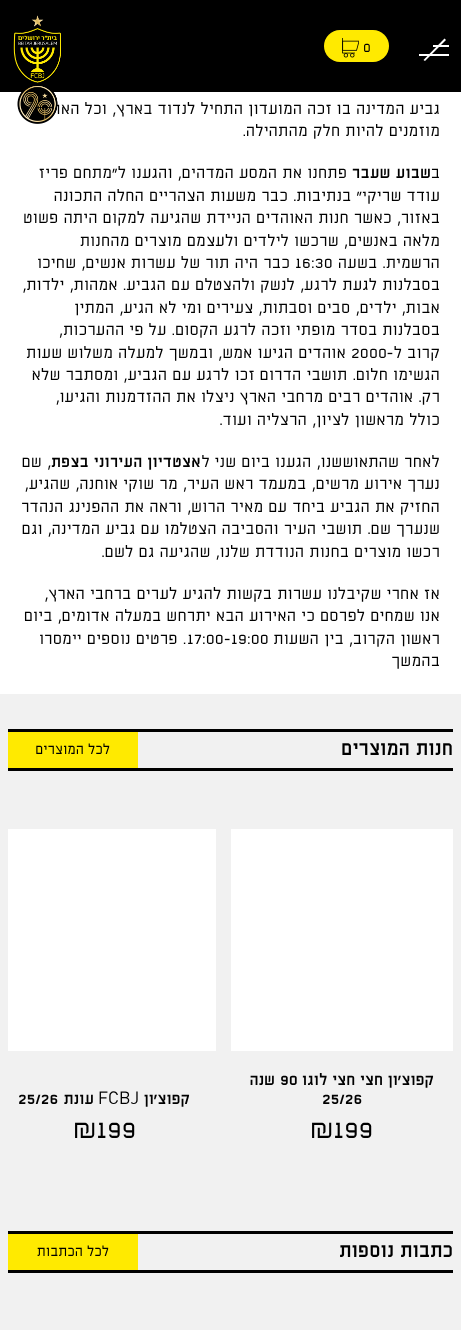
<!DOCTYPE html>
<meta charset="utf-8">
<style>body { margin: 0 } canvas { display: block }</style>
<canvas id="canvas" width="461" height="1330"></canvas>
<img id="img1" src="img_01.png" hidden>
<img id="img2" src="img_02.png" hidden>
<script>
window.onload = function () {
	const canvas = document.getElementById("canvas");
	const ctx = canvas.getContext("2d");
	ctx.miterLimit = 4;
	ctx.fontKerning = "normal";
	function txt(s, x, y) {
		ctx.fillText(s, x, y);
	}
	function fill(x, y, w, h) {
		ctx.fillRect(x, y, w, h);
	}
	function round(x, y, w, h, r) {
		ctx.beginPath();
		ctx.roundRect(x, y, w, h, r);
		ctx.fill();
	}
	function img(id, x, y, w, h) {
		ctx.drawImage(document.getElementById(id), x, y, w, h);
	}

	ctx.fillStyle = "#F1F1F1";
	fill(0, 0, 461, 1330);
	ctx.fillStyle = "#000000";
	fill(0, 0, 461, 92);
	ctx.fillStyle = "#FFFFFF";
	ctx.beginPath();
	ctx.moveTo(423.5, 60);
	ctx.lineTo(444.5, 38.5);
	ctx.lineTo(446, 40);
	ctx.lineTo(425, 61);
	ctx.closePath();
	ctx.fill();
	fill(433, 45, 16, 2);
	fill(419, 54, 30, 2);
	ctx.fillStyle = "#FFEA00";
	round(324, 30, 65, 32, 16);
	img("img1", 342, 38, 17, 20);
	ctx.fillStyle = "#FFFFFF";
	fill(0, 92, 461, 602);
	ctx.fillStyle = "#000000";
	fill(8, 729, 445, 3);
	fill(8, 768, 445, 3);
	ctx.fillStyle = "#FFEA00";
	fill(8, 732, 130, 36);
	ctx.fillStyle = "#FFFFFF";
	fill(231, 829, 222, 222);
	fill(8, 829, 208, 222);
	ctx.fillStyle = "#000000";
	fill(8, 1231, 445, 3);
	fill(8, 1270, 445, 3);
	ctx.fillStyle = "#FFEA00";
	fill(8, 1234, 130, 36);
	ctx.font = "14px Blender";
	ctx.fillStyle = "#000000";
	txt("0", 363, 52);
	ctx.letterSpacing = "0.18px";
	ctx.direction = "rtl";
	ctx.font = "16px Blender";
	txt("גביע המדינה בו זכה המועדון התחיל לנדוד בארץ, וכל האוהדים", 440, 114);
	img("img2", 13, 15, 48, 109);
	txt("מוזמנים להיות חלק מהתהילה.", 440, 136);
	txt("ב", 440, 178);
	ctx.font = "bold 16px Blender";
	txt("שבוע שעבר", 431, 178);
	ctx.font = "16px Blender";
	txt("פתחנו את המסע המדהים, והגענו ל\"מתחם פריז", 347, 178);
	txt("עודד שריקי\" בנתיבות. כבר משעות הצהריים החלה התכונה", 440, 201);
	txt("באזור, כאשר חנות האוהדים הניידת שהגיעה למקום היתה פשוט", 440, 223);
	txt("מלאה באנשים, שרכשו לילדים ולעצמם מוצרים מהחנות", 440, 246);
	txt("הרשמית. בשעה", 440, 268);
	ctx.direction = "ltr";
	txt("16:30", 295, 268);
	ctx.direction = "rtl";
	txt("כבר היה תור של עשרות אנשים, שחיכו", 290, 268);
	txt("בסבלנות לגעת לרגע, לנשק ולהצטלם עם הגביע. אמהות, ילדות,", 440, 290);
	txt("אבות, ילדים, סבים וסבתות, צעירים ומי לא הגיע, המתין", 440, 313);
	txt("בסבלנות בסדר מופתי וזכה לרגע הקסום. על פי ההערכות,", 440, 335);
	txt("קרוב ל-", 440, 358);
	ctx.direction = "ltr";
	txt("2000", 351, 358);
	ctx.direction = "rtl";
	txt("אוהדים הגיעו אמש, ובמשך למעלה משלוש שעות", 346, 358);
	txt("הגשימו חלום. תושבי הדרום זכו לרגע עם הגביע, ומסתבר שלא", 440, 380);
	txt("רק. אוהדים רבים מרחבי הארץ ניצלו את ההזדמנות והגיעו,", 440, 402);
	txt("כולל מראשון לציון, הרצליה ועוד.", 440, 425);
	txt("לאחר שהתאוששנו, הגענו ביום שני", 440, 467);
	txt("ל", 210, 467);
	ctx.font = "bold 16px Blender";
	txt("אצטדיון העירוני בצפת", 201, 467);
	ctx.font = "16px Blender";
	txt(", שם", 51, 467);
	txt("נערך אירוע מרשים, במעמד ראש העיר, מר שוקי אוחנה, שהגיע,", 440, 489);
	txt("החזיק את הגביע ביחד עם מאיר הרוש, וראה את ההפנינג הנהדר", 440, 512);
	txt("שנערך שם. תושבי העיר והסביבה הצטלמו עם גביע המדינה, וגם", 440, 534);
	txt("רכשו מוצרים בחנות הנודדת שלנו, שהגיעה גם לשם.", 440, 557);
	txt("אז אחרי שקיבלנו עשרות בקשות להגיע לערים ברחבי הארץ,", 440, 599);
	txt("אנו שמחים לפרסם כי האירוע הבא יתרחש במעלה אדומים, ביום", 440, 621);
	txt("ראשון הקרוב, בין השעות", 440, 644);
	ctx.direction = "ltr";
	txt("17:00-19:00", 187, 644);
	ctx.direction = "rtl";
	txt(". פרטים נוספים יימסרו", 186, 644);
	txt("בהמשך", 440, 666);
	ctx.letterSpacing = "0px";
	ctx.font = "bold 20px Blender";
	txt("חנות המוצרים", 453, 755);
	ctx.font = "14px Blender";
	txt("לכל המוצרים", 110, 754);
	ctx.font = "bold 16px Blender";
	txt("קפוצ'ון חצי חצי לוגו", 434, 1085);
	ctx.direction = "ltr";
	txt("90", 280, 1085);
	ctx.direction = "rtl";
	txt("שנה", 275, 1085);
	ctx.direction = "ltr";
	txt("25/26", 322, 1104);
	ctx.font = "26px Blender";
	txt("₪199", 310, 1138);
	ctx.direction = "rtl";
	ctx.font = "bold 16px Blender";
	txt("קפוצ'ון", 190, 1104);
	ctx.direction = "ltr";
	txt("FCBJ", 98, 1104);
	ctx.direction = "rtl";
	txt("עונת", 94, 1104);
	ctx.direction = "ltr";
	txt("25/26", 18, 1104);
	ctx.font = "26px Blender";
	txt("₪199", 73, 1138);
	ctx.direction = "rtl";
	ctx.font = "bold 20px Blender";
	txt("כתבות נוספות", 453, 1257);
	ctx.font = "14px Blender";
	txt("לכל הכתבות", 109, 1256);
};
</script>
